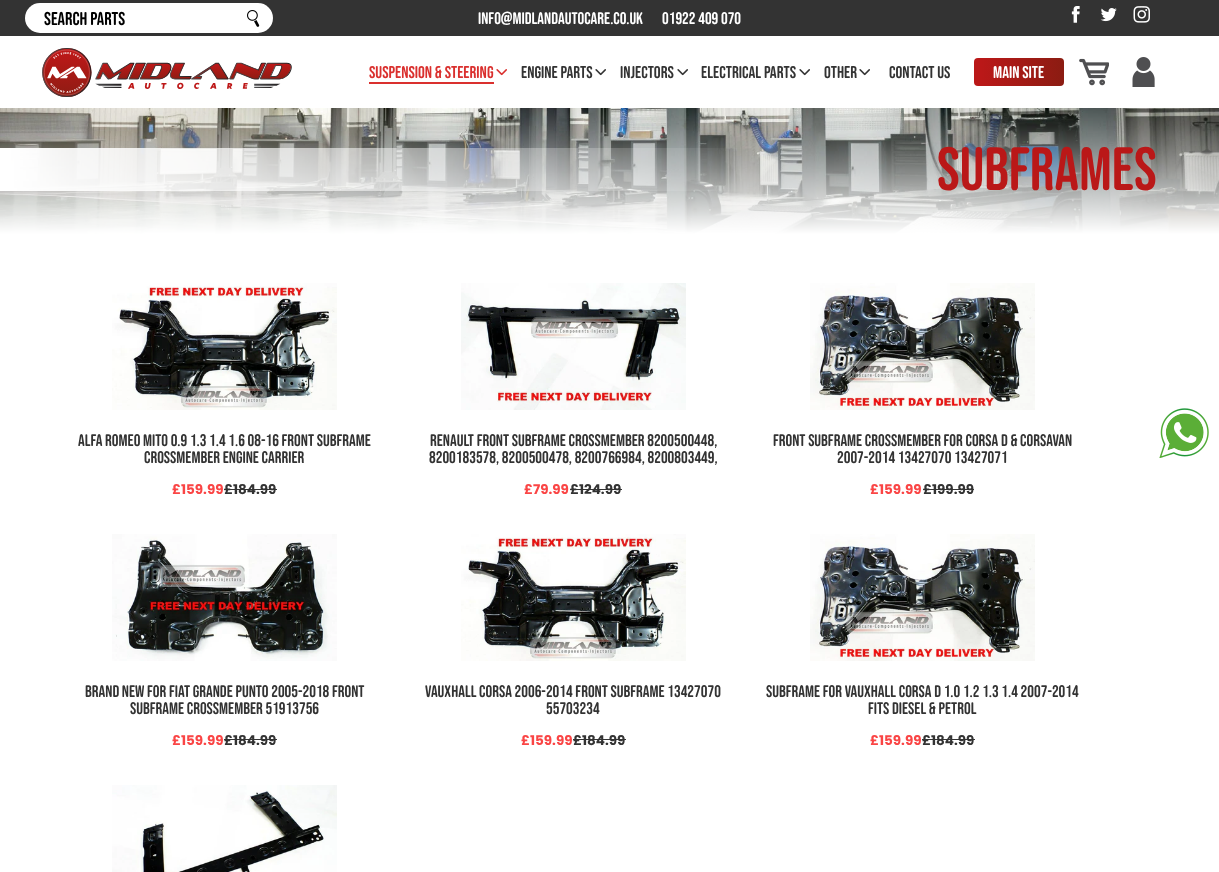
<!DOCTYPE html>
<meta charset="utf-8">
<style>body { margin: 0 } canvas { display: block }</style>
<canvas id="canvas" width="1219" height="872"></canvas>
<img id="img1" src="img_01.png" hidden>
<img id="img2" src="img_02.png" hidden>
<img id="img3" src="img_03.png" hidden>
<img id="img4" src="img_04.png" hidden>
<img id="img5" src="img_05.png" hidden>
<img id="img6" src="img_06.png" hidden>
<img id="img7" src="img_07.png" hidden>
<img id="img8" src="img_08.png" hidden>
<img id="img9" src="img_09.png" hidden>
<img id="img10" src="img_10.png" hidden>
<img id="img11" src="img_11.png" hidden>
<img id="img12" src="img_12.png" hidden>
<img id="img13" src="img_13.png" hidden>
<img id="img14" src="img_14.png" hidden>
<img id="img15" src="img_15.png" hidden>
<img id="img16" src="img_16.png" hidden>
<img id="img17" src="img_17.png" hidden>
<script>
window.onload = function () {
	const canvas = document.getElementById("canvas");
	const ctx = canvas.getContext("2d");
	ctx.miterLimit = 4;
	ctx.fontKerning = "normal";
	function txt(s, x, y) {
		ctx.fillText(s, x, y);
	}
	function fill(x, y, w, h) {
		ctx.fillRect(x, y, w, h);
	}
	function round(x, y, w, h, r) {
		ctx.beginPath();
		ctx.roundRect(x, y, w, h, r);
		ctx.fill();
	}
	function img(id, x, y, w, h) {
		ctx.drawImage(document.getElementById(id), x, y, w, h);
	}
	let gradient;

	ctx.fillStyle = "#FFFFFF";
	fill(0, 0, 1219, 872);
	ctx.fillStyle = "#333333";
	fill(0, 0, 1219, 36);
	ctx.fillStyle = "#FFFFFF";
	round(25, 3, 248, 30, 15);
	img("img1", 247, 10, 13, 17);
	img("img2", 1071, 6, 9, 17);
	img("img3", 1100, 8, 17, 14);
	img("img4", 1133, 6, 17, 17);
	img("img5", 42, 48, 250, 49);
	ctx.fillStyle = "#DA302E";
	fill(369, 82, 125, 2);
	img("img6", 496, 69, 11, 7);
	img("img7", 595, 69, 11, 7);
	img("img7", 677, 69, 11, 7);
	img("img7", 799, 69, 11, 7);
	img("img7", 859, 69, 11, 7);
	gradient = ctx.createLinearGradient(974, 72, 1064, 72);
	gradient.addColorStop(0, "#BA1818");
	gradient.addColorStop(0.08, "#BA1818");
	gradient.addColorStop(1, "#8B1C12");
	ctx.fillStyle = gradient;
	round(974, 58, 90, 28, 4);
	img("img8", 1079, 58, 30, 28);
	img("img9", 1132, 57, 23, 30);
	img("img10", 0, 108, 1219, 137);
	img("img11", 112, 283, 225, 127);
	ctx.fillStyle = "#333333";
	fill(224, 489, 53, 1);
	img("img12", 461, 283, 225, 127);
	fill(570, 489, 52, 1);
	img("img13", 810, 283, 225, 127);
	fill(923, 489, 51, 1);
	img("img14", 112, 534, 225, 127);
	fill(224, 739, 53, 1);
	img("img15", 461, 534, 225, 127);
	fill(573, 739, 53, 1);
	img("img13", 810, 534, 225, 127);
	fill(922, 739, 53, 1);
	img("img16", 112, 785, 225, 87);
	img("img17", 1159, 408, 50, 50);
	ctx.font = "18.5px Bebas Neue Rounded";
	ctx.fillStyle = "#000000";
	txt("SEARCh PARTS", 44, 25);
	ctx.font = "16.75px Bebas Neue Rounded";
	ctx.fillStyle = "#FFFFFF";
	txt("INFO@MIDLANDAUTOCARE.CO.UK", 478, 24);
	txt("01922 409 070", 662, 24);
	ctx.font = "17px Bebas Neue Rounded";
	ctx.fillStyle = "#DA302E";
	txt("SUSPENSION & STEERING", 369, 78);
	ctx.fillStyle = "#333333";
	txt("ENGINE PARTS", 521, 78);
	txt("INJECTORS", 620, 78);
	txt("ELECTRICAL PARTS", 701, 78);
	txt("OTHER", 824, 78);
	txt("CONTACT US", 889, 78);
	ctx.fillStyle = "#FFFFFF";
	txt("MAIN SITE", 993, 78);
	ctx.font = "61px Bebas Neue Rounded";
	ctx.fillStyle = "#BA1818";
	txt("Subframes", 937, 190);
	ctx.font = "16.75px Bebas Neue Rounded";
	ctx.fillStyle = "#333333";
	txt("ALFA ROMEO MITO 0.9 1.3 1.4 1.6 08-16 FRONT SUBFRAME", 78, 446);
	txt("CROSSMEMBER ENGINE CARRIER", 144, 463);
	ctx.font = "bold 13.5px Poppins";
	ctx.fillStyle = "#FA4545";
	txt("£159.99", 172, 494);
	ctx.fillStyle = "#333333";
	txt("£184.99", 224, 494);
	ctx.font = "16.75px Bebas Neue Rounded";
	txt("Renault Front Subframe Crossmember 8200500448,", 430, 446);
	txt("8200183578, 8200500478, 8200766984, 8200803449,", 429, 463);
	ctx.font = "bold 13.5px Poppins";
	ctx.fillStyle = "#FA4545";
	txt("£79.99", 524, 494);
	ctx.fillStyle = "#333333";
	txt("£124.99", 570, 494);
	ctx.font = "16.75px Bebas Neue Rounded";
	txt("FRONT SUBFRAME CROSSMEMBER FOR CORSA D & CORSAVAN", 773, 446);
	txt("2007-2014 13427070 13427071", 837, 463);
	ctx.font = "bold 13.5px Poppins";
	ctx.fillStyle = "#FA4545";
	txt("£159.99", 870, 494);
	ctx.fillStyle = "#333333";
	txt("£199.99", 923, 494);
	ctx.font = "16.75px Bebas Neue Rounded";
	txt("BRAND NEW FOR FIAT GRANDE PUNTO 2005-2018 FRONT", 85, 697);
	txt("SUBFRAME CROSSMEMBER 51913756", 130, 714);
	ctx.font = "bold 13.5px Poppins";
	ctx.fillStyle = "#FA4545";
	txt("£159.99", 172, 745);
	ctx.fillStyle = "#333333";
	txt("£184.99", 224, 745);
	ctx.font = "16.75px Bebas Neue Rounded";
	txt("Vauxhall Corsa 2006-2014 Front Subframe 13427070", 425, 697);
	txt("55703234", 546, 714);
	ctx.font = "bold 13.5px Poppins";
	ctx.fillStyle = "#FA4545";
	txt("£159.99", 521, 745);
	ctx.fillStyle = "#333333";
	txt("£184.99", 573, 745);
	ctx.font = "16.75px Bebas Neue Rounded";
	txt("SUBFRAME FOR VAUXHALL CORSA D 1.0 1.2 1.3 1.4 2007-2014", 766, 697);
	txt("FITs DIESEL & PETROL", 868, 714);
	ctx.font = "bold 13.5px Poppins";
	ctx.fillStyle = "#FA4545";
	txt("£159.99", 870, 745);
	ctx.fillStyle = "#333333";
	txt("£184.99", 922, 745);
};
</script>
